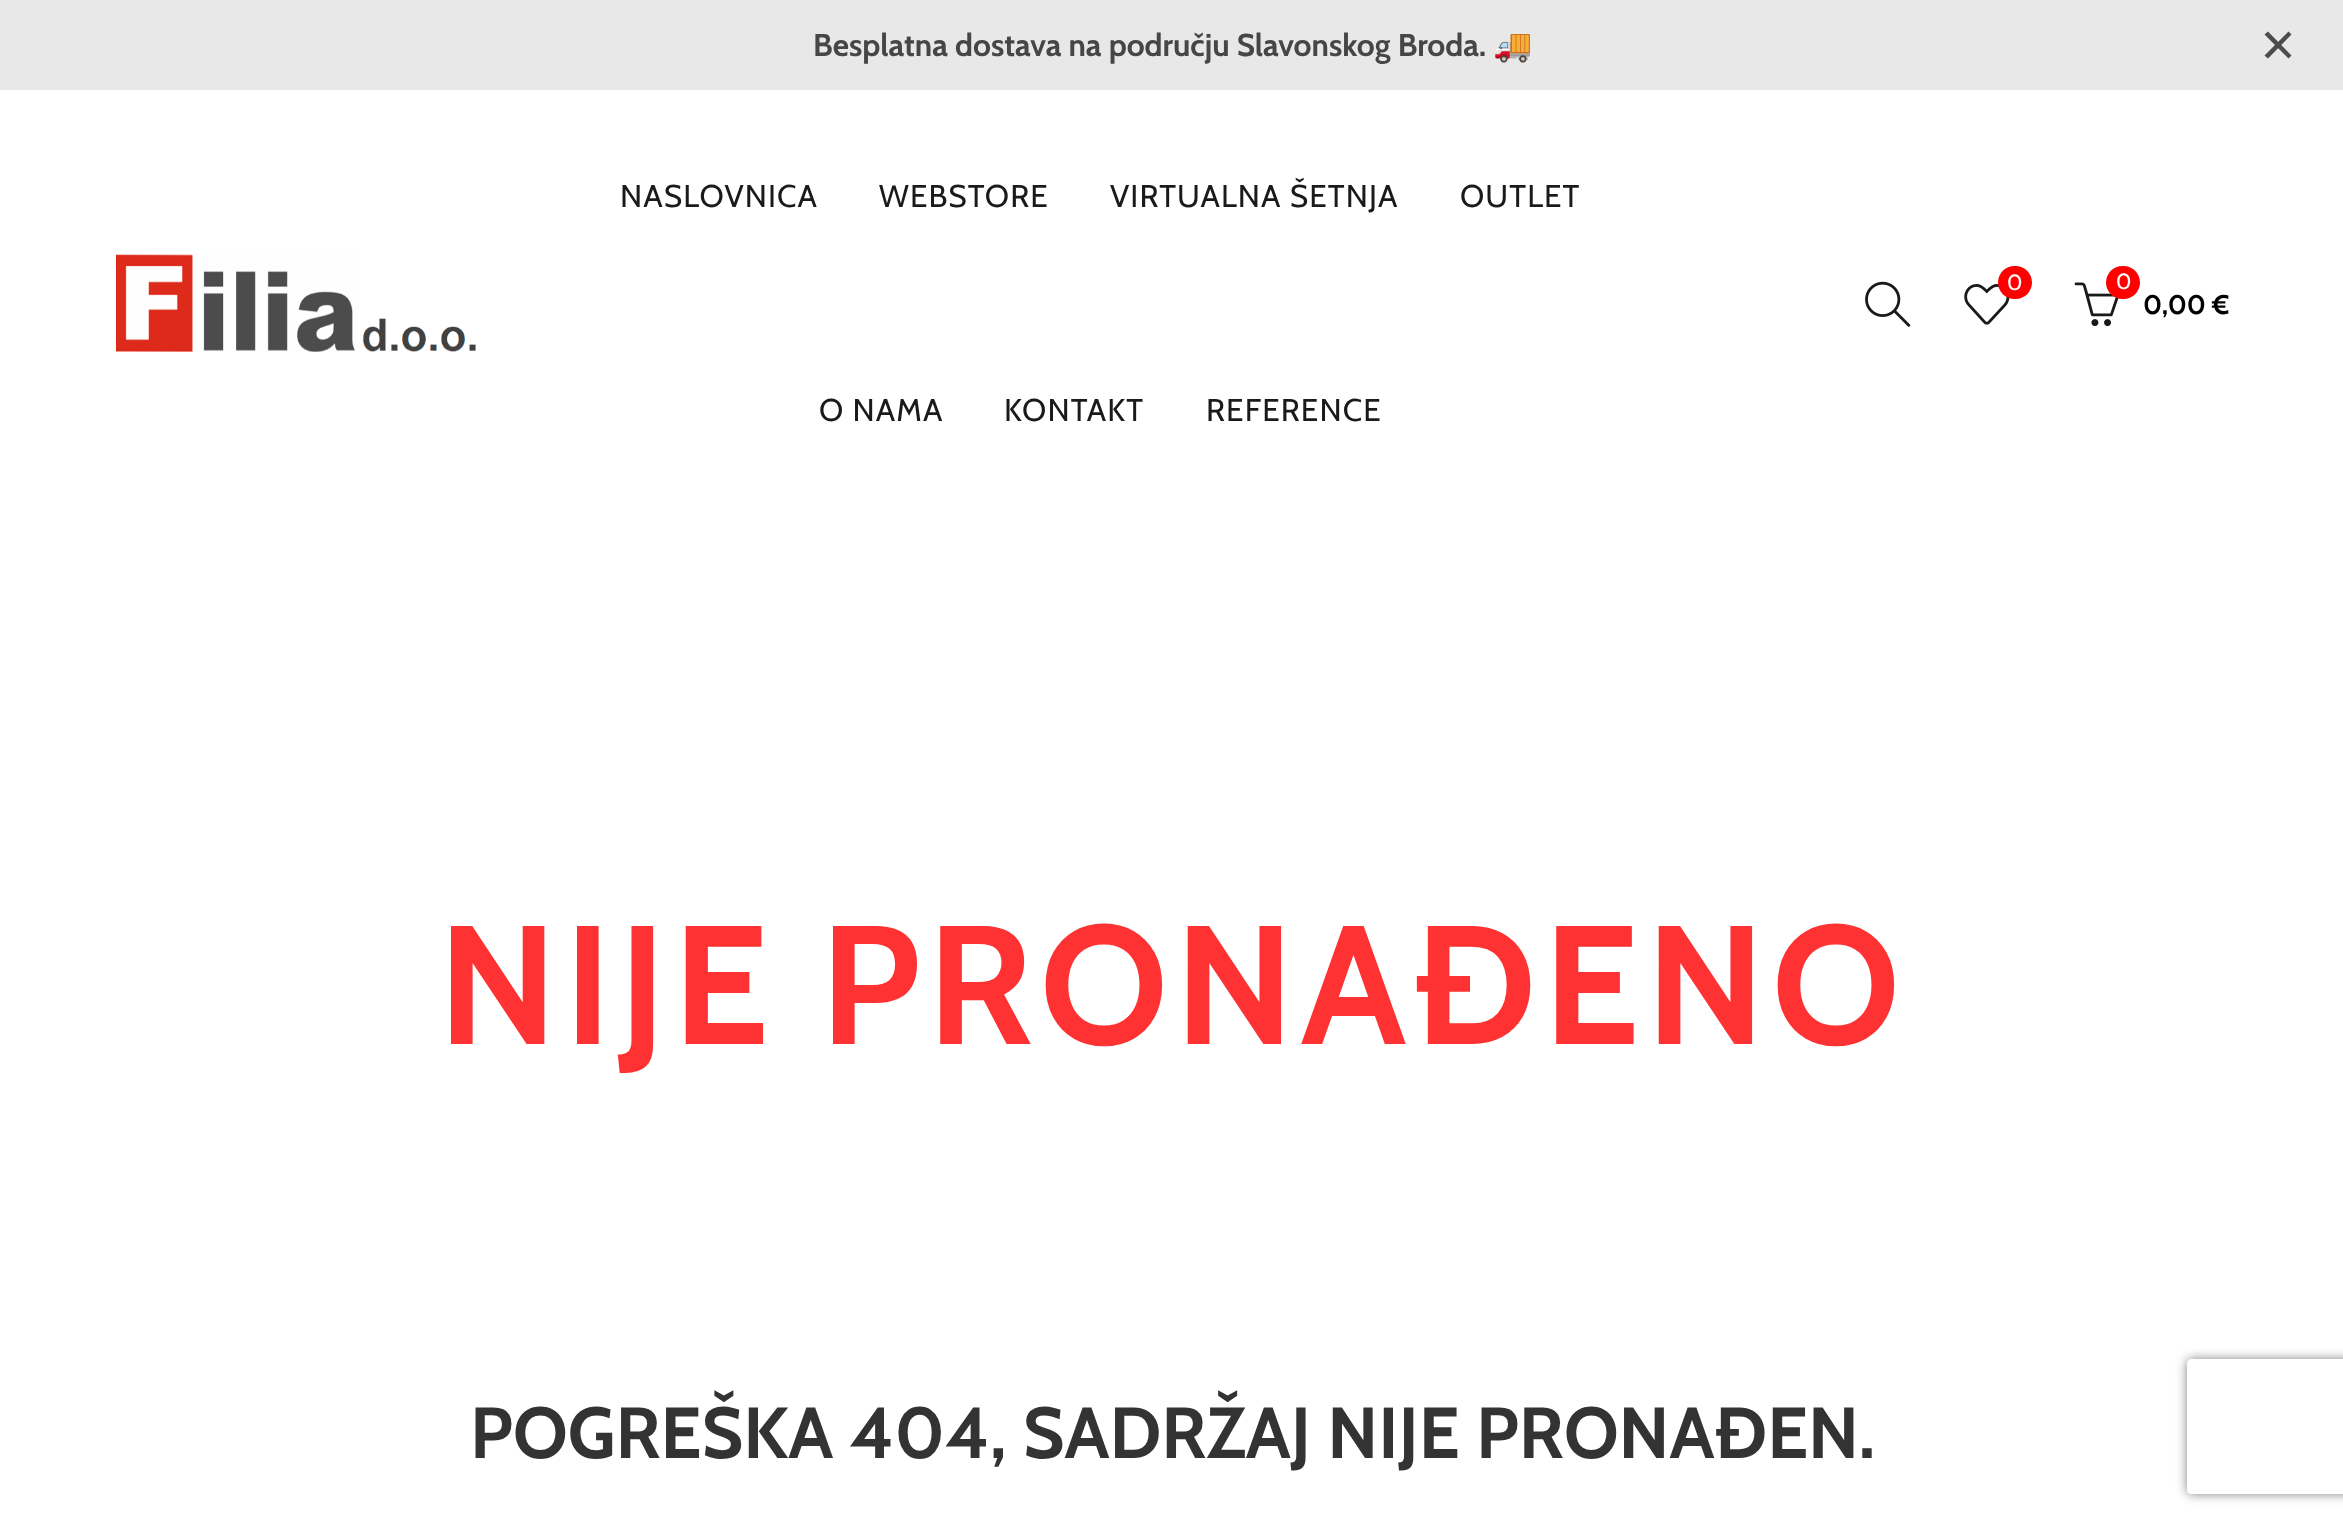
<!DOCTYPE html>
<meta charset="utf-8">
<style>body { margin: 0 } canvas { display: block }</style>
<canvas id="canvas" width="2343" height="1525"></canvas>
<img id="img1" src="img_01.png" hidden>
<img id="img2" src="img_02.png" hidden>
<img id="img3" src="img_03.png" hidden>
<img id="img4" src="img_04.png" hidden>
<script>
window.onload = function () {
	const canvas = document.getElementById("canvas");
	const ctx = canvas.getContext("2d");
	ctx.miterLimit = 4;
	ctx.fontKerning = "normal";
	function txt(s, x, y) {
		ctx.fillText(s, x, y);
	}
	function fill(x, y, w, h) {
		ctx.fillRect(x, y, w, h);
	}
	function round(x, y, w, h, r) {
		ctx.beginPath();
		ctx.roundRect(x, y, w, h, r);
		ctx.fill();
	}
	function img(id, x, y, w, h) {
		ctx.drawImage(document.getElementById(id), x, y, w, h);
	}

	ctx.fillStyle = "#E8E8E8";
	fill(0, 0, 2343, 1525);
	ctx.fillStyle = "#4C4C4C";
	ctx.beginPath();
	ctx.moveTo(2268, 31.5);
	ctx.lineTo(2291.5, 55.5);
	ctx.lineTo(2288.5, 58.5);
	ctx.lineTo(2264.5, 34.5);
	ctx.closePath();
	ctx.fill();
	ctx.beginPath();
	ctx.moveTo(2264.5, 55.5);
	ctx.lineTo(2288.5, 31.5);
	ctx.lineTo(2291.5, 34.5);
	ctx.lineTo(2268, 58.5);
	ctx.closePath();
	ctx.fill();
	ctx.fillStyle = "#FFFFFF";
	fill(0, 90, 2343, 1435);
	img("img1", 116, 254, 360, 98);
	img("img2", 1865, 281, 46, 46);
	img("img3", 1964, 284, 46, 41);
	ctx.fillStyle = "#FF0000";
	round(1998, 266, 34, 33, 16.5);
	img("img4", 2074, 282, 45, 45);
	round(2106, 266, 34, 33, 16.5);
	ctx.save();
	ctx.beginPath();
	ctx.moveTo(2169, 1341);
	ctx.lineTo(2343, 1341);
	ctx.lineTo(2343, 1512);
	ctx.lineTo(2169, 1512);
	ctx.closePath();
	ctx.moveTo(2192, 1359);
	ctx.lineTo(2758, 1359);
	ctx.bezierCurveTo(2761, 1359, 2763, 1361, 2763, 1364);
	ctx.lineTo(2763, 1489);
	ctx.bezierCurveTo(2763, 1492, 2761, 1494, 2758, 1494);
	ctx.lineTo(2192, 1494);
	ctx.bezierCurveTo(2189, 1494, 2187, 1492, 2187, 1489);
	ctx.lineTo(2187, 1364);
	ctx.bezierCurveTo(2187, 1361, 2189, 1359, 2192, 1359);
	ctx.closePath();
	ctx.clip("evenodd");
	ctx.fillStyle = "#808080";
	ctx.filter = "blur(5.5px)";
	ctx.beginPath();
	ctx.roundRect(2187, 1359, 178, 135, 5);
	ctx.fill();
	ctx.filter = "none";
	ctx.restore();
	ctx.font = "bold 31.5px Cabin";
	ctx.fillStyle = "#464646";
	txt("Besplatna dostava na području Slavonskog Broda.", 813, 56);
	ctx.font = "bold 31.5px Noto Color Emoji";
	txt("🚚", 1493, 56);
	ctx.letterSpacing = "1.1px";
	ctx.font = "31.5px Cabin";
	ctx.fillStyle = "#1A1A1A";
	txt("NASLOVNICA", 620, 207);
	txt("WEBSTORE", 879, 207);
	txt("VIRTUALNA ŠETNJA", 1110, 207);
	txt("OUTLET", 1460, 207);
	txt("O NAMA", 819, 421);
	txt("KONTAKT", 1004, 421);
	txt("REFERENCE", 1206, 421);
	ctx.letterSpacing = "0px";
	ctx.font = "22px Cabin";
	ctx.fillStyle = "#FFFFFF";
	txt("0", 2007, 290);
	txt("0", 2116, 289);
	ctx.font = "bold 27px Cabin";
	ctx.fillStyle = "#000000";
	txt("0,00 €", 2143, 314);
	ctx.letterSpacing = "6.75px";
	ctx.font = "bold 168.75px Cabin";
	ctx.fillStyle = "#FE3232";
	txt("NIJE PRONAĐENO", 438, 1044);
	ctx.letterSpacing = "0px";
	ctx.font = "bold 72px Cabin";
	ctx.fillStyle = "#333333";
	txt("POGREŠKA 404, SADRŽAJ NIJE PRONAĐEN.", 470, 1458);
};
</script>
